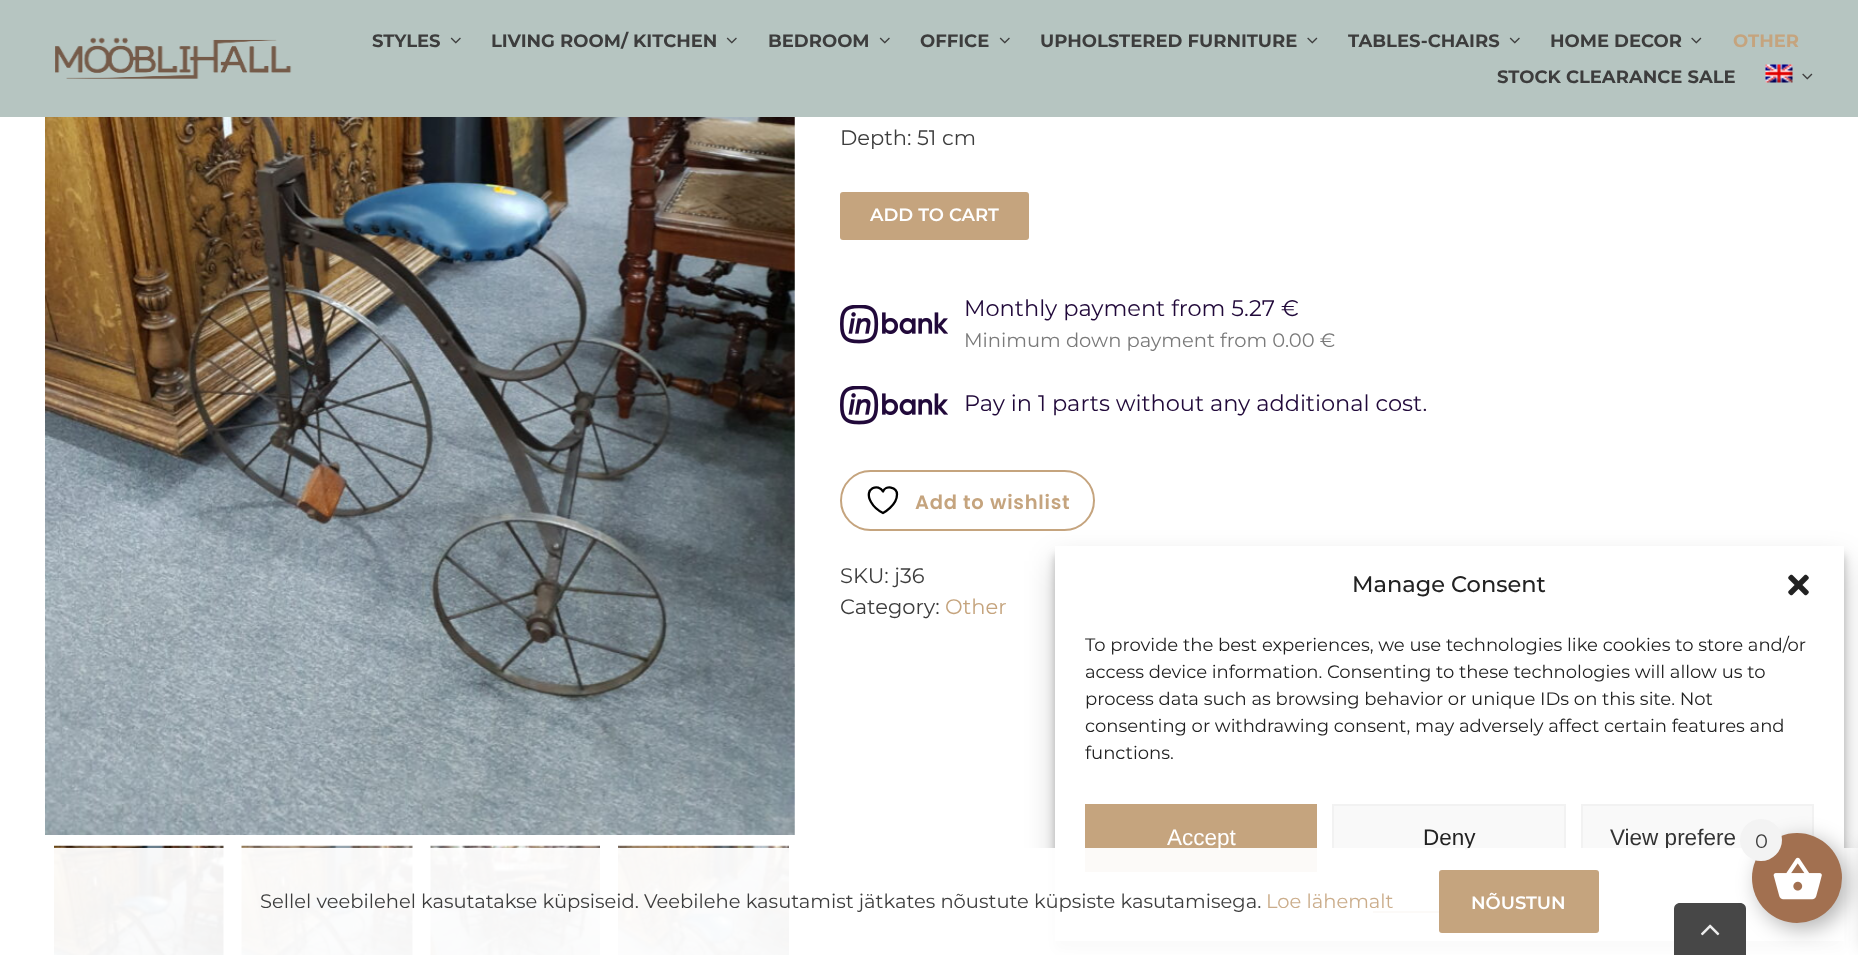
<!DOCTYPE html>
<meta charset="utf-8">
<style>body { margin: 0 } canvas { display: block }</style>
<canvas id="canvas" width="1858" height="955"></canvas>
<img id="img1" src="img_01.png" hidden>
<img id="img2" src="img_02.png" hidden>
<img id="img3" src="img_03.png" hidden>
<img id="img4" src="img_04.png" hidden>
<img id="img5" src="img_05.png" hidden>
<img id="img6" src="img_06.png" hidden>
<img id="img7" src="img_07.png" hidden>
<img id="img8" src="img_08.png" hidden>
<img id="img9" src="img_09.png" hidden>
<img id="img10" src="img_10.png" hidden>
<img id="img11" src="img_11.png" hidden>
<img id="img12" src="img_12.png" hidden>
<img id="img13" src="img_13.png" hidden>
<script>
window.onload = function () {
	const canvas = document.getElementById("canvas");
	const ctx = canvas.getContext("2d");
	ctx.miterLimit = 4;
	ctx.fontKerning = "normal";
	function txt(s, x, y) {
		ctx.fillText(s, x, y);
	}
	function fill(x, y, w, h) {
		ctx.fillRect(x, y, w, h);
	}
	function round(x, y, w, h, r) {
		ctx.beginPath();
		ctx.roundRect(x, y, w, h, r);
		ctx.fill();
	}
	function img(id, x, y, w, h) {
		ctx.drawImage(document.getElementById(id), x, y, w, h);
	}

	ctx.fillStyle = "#FFFFFF";
	fill(0, 0, 1858, 955);
	ctx.fillStyle = "#B6C5C1";
	fill(0, 0, 1858, 117);
	img("img1", 55, 37, 237, 42);
	img("img2", 450, 37, 11, 7);
	img("img2", 726, 37, 11, 7);
	img("img2", 879, 37, 11, 7);
	img("img2", 999, 37, 11, 7);
	img("img3", 1307, 37, 11, 7);
	img("img2", 1509, 37, 11, 7);
	img("img3", 1691, 37, 11, 7);
	img("img4", 1765, 64, 28, 19);
	img("img3", 1802, 73, 11, 7);
	img("img5", 45, 117, 750, 718);
	img("img6", 54, 845, 170, 110);
	img("img7", 241, 845, 172, 110);
	img("img8", 430, 845, 170, 110);
	img("img9", 618, 845, 171, 110);
	ctx.fillStyle = "#C5A47E";
	round(840, 192, 189, 48, 3);
	img("img10", 840, 305, 108, 39);
	img("img10", 840, 386, 108, 39);
	ctx.beginPath();
	ctx.roundRect(841, 471, 253, 59, 29.5);
	ctx.strokeStyle = "#C5A47E";
	ctx.lineWidth = 2;
	ctx.stroke();
	ctx.beginPath();
	ctx.moveTo(897, 494.5);
	ctx.bezierCurveTo(897, 486.5, 885.5, 485, 883, 491.5);
	ctx.bezierCurveTo(879, 483, 863, 488, 871, 502);
	ctx.bezierCurveTo(873.5, 506.5, 878, 510.5, 883, 513);
	ctx.bezierCurveTo(883, 513, 897, 505.5, 897, 494.5);
	ctx.closePath();
	ctx.strokeStyle = "#000000";
	ctx.lineWidth = 2.3;
	ctx.lineCap = "round";
	ctx.lineJoin = "round";
	ctx.stroke();
	ctx.fillStyle = "rgba(0, 0, 0, 0.23)";
	ctx.filter = "blur(4.5px)";
	ctx.beginPath();
	ctx.rect(1055, 555, 789, 395);
	ctx.fill();
	ctx.filter = "none";
	ctx.fillStyle = "rgba(0, 0, 0, 0.19)";
	ctx.filter = "blur(15px)";
	ctx.beginPath();
	ctx.rect(1055, 561, 789, 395);
	ctx.fill();
	ctx.filter = "none";
	ctx.fillStyle = "#FFFFFF";
	fill(1055, 546, 789, 395);
	img("img11", 1788, 574, 21, 22);
	ctx.fillStyle = "#C5A47E";
	fill(1085, 804, 232, 68);
	ctx.fillStyle = "#F9F9F9";
	ctx.beginPath();
	ctx.rect(1333, 805, 232, 66);
	ctx.fill();
	ctx.strokeStyle = "#F2F2F2";
	ctx.lineWidth = 2;
	ctx.lineJoin = "miter";
	ctx.stroke();
	ctx.beginPath();
	ctx.rect(1582, 805, 231, 66);
	ctx.fill();
	ctx.stroke();
	ctx.fillStyle = "#C5A47E";
	fill(1373, 911, 66, 2);
	ctx.font = "bold 18px Montserrat";
	ctx.fillStyle = "#3D3D3D";
	txt("STYLES", 372, 47);
	txt("LIVING ROOM/ KITCHEN", 491, 47);
	txt("BEDROOM", 768, 47);
	txt("OFFICE", 920, 47);
	txt("UPHOLSTERED FURNITURE", 1040, 47);
	txt("TABLES-CHAIRS", 1348, 47);
	txt("HOME DECOR", 1550, 47);
	ctx.fillStyle = "#C5A47E";
	txt("OTHER", 1733, 47);
	ctx.fillStyle = "#3D3D3D";
	txt("STOCK CLEARANCE SALE", 1497, 83);
	ctx.font = "21px Montserrat";
	txt("Depth: 51 cm", 840, 145);
	ctx.font = "600 18px Montserrat";
	ctx.fillStyle = "#FFFFFF";
	txt("ADD TO CART", 870, 221);
	ctx.font = "22.5px Montserrat";
	ctx.fillStyle = "#21093A";
	txt("Monthly payment from 5.27 €", 964, 316);
	ctx.font = "19.5px Montserrat";
	ctx.fillStyle = "#7A7A7A";
	txt("Minimum down payment from 0.00 €", 964, 347);
	ctx.font = "22.5px Montserrat";
	ctx.fillStyle = "#21093A";
	txt("Pay in 1 parts without any additional cost.", 964, 411);
	ctx.letterSpacing = "0.75px";
	ctx.font = "600 19.5px Poppins";
	ctx.fillStyle = "#C5A47E";
	txt("Add to wishlist", 915, 509);
	ctx.letterSpacing = "0px";
	ctx.font = "21px Montserrat";
	ctx.fillStyle = "#3D3D3D";
	txt("SKU: j36", 840, 583);
	txt("Category:", 840, 614);
	ctx.fillStyle = "#C5A47E";
	txt("Other", 945, 614);
	ctx.font = "500 22.5px Montserrat";
	ctx.fillStyle = "#222222";
	txt("Manage Consent", 1352, 592);
	ctx.font = "18px Montserrat";
	txt("To provide the best experiences, we use technologies like cookies to store and/or", 1085, 651);
	txt("access device information. Consenting to these technologies will allow us to", 1085, 678);
	txt("process data such as browsing behavior or unique IDs on this site. Not", 1085, 705);
	txt("consenting or withdrawing consent, may adversely affect certain features and", 1085, 732);
	txt("functions.", 1085, 759);
	ctx.font = "22.5px Liberation Sans";
	ctx.fillStyle = "#FFFFFF";
	txt("Accept", 1167, 845);
	ctx.fillStyle = "#222222";
	txt("Deny", 1423, 845);
	ctx.fillStyle = "#333333";
	txt("View prefere", 1610, 845);
	ctx.fillStyle = "rgba(255, 255, 255, 0.95)";
	fill(54, 848, 1804, 107);
	ctx.fillStyle = "rgba(0, 0, 0, 0.1)";
	ctx.filter = "blur(7.5px)";
	ctx.beginPath();
	ctx.rect(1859, 842, 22, 106);
	ctx.fill();
	ctx.filter = "none";
	ctx.font = "19.5px Montserrat";
	ctx.fillStyle = "#3D3D3D";
	txt("Sellel veebilehel kasutatakse küpsiseid. Veebilehe kasutamist jätkates nõustute küpsiste kasutamisega.", 260, 908);
	ctx.fillStyle = "#CBAD8B";
	txt("Loe lähemalt", 1266, 908);
	ctx.fillStyle = "#C5A47E";
	round(1439, 870, 160, 63, 3);
	ctx.font = "600 18px Montserrat";
	ctx.fillStyle = "#FFFFFF";
	txt("NÕUSTUN", 1471, 909);
	ctx.fillStyle = "rgba(51, 51, 51, 0.9)";
	ctx.beginPath();
	ctx.moveTo(1680, 903);
	ctx.lineTo(1740, 903);
	ctx.bezierCurveTo(1743.5, 903, 1746, 905.5, 1746, 909);
	ctx.lineTo(1746, 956);
	ctx.lineTo(1674, 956);
	ctx.lineTo(1674, 909);
	ctx.bezierCurveTo(1674, 905.5, 1676.5, 903, 1680, 903);
	ctx.closePath();
	ctx.fill();
	ctx.fillStyle = "rgba(0, 0, 0, 0.3)";
	ctx.filter = "blur(10.5px)";
	ctx.beginPath();
	ctx.roundRect(1758, 839, 90, 90, 45);
	ctx.fill();
	ctx.filter = "none";
	ctx.fillStyle = "#A27050";
	ctx.beginPath();
	ctx.arc(1797, 878, 45, 0, Math.PI * 2);
	ctx.fill();
	img("img12", 1773, 857, 49, 43);
	ctx.fillStyle = "#F3F3F3";
	ctx.beginPath();
	ctx.arc(1761, 840, 21, 0, Math.PI * 2);
	ctx.fill();
	ctx.font = "19.5px Montserrat";
	ctx.fillStyle = "#3D3D3D";
	txt("0", 1755, 848);
	img("img13", 1701, 924, 19, 12);
};
</script>
